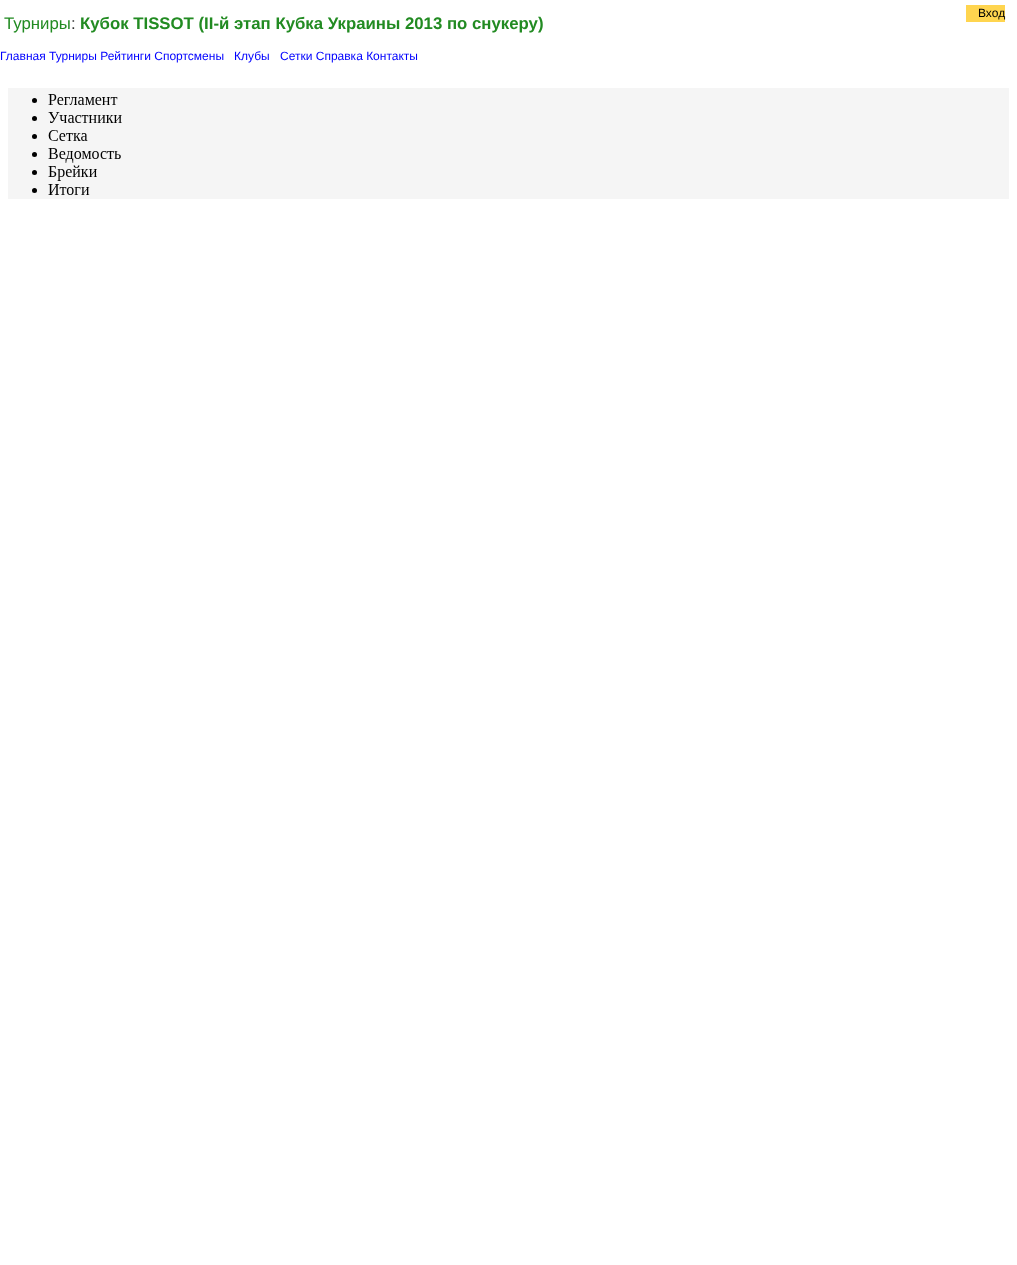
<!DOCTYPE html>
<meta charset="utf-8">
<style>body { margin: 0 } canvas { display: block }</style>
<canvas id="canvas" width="1017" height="1265"></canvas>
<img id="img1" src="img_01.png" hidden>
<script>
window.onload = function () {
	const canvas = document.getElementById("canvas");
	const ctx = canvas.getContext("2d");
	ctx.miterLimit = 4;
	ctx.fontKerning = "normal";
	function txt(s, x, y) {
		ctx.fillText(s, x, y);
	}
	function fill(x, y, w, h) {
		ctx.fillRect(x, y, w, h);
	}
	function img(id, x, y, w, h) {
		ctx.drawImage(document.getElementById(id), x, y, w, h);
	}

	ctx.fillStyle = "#FFFFFF";
	fill(0, 0, 1017, 1265);
	ctx.fillStyle = "#FFD54F";
	fill(966, 5, 39, 17);
	img("img1", 8, 88, 1001, 111);
	ctx.font = "12px Liberation Sans";
	ctx.fillStyle = "#000000";
	txt("Вход", 978, 17);
	ctx.fillStyle = "#0000FF";
	txt("Главная Турниры Рейтинги Спортсмены", 0, 60);
	txt("Клубы", 234, 60);
	txt("Сетки Справка Контакты", 280, 60);
	ctx.font = "16.8px Liberation Sans";
	ctx.fillStyle = "#228B22";
	txt("Турниры", 4, 29);
	ctx.fillStyle = "#333333";
	txt(":", 71, 29);
	ctx.font = "bold 16.8px Liberation Sans";
	ctx.fillStyle = "#228B22";
	txt("Кубок TISSOT (II-й этап Кубка Украины 2013 по снукеру)", 80, 29);
};
</script>
